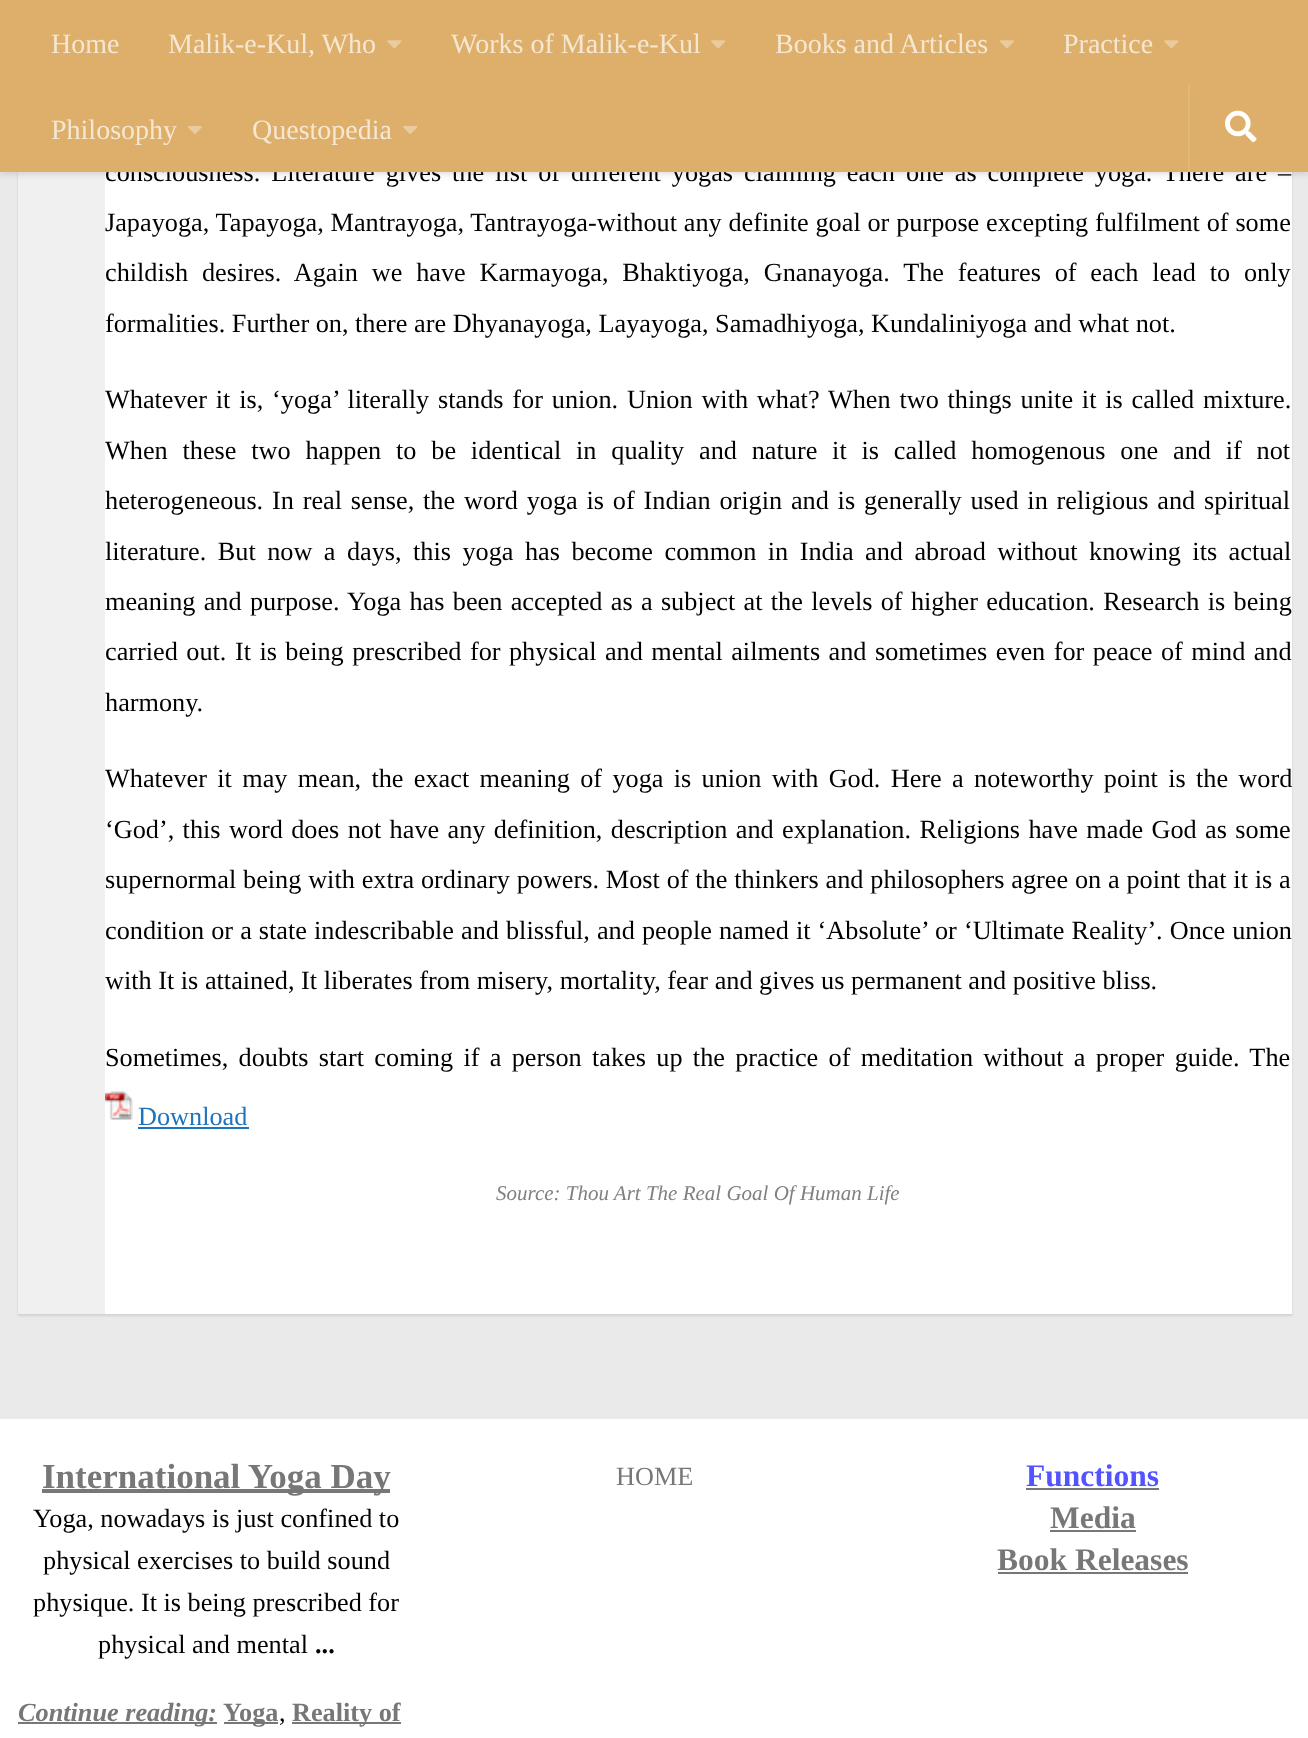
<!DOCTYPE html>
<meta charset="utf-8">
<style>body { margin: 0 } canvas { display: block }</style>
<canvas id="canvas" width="1308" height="1738"></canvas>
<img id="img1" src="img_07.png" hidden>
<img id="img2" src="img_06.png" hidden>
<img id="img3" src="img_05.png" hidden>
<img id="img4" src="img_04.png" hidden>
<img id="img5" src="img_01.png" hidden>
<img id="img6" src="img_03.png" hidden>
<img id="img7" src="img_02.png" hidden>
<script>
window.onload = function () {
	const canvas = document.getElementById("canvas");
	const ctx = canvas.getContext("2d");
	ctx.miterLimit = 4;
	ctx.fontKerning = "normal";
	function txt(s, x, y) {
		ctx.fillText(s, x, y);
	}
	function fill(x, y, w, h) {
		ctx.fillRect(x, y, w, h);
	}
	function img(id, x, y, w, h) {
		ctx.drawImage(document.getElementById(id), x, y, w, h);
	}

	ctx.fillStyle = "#EAEAEA";
	fill(0, 0, 1308, 1738);
	ctx.fillStyle = "rgba(0, 0, 0, 0.1)";
	ctx.filter = "blur(1px)";
	ctx.beginPath();
	ctx.rect(18, -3, 1274, 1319);
	ctx.fill();
	ctx.filter = "none";
	ctx.fillStyle = "#FFFFFF";
	fill(105, 172, 1187, 1142);
	ctx.fillStyle = "#F0F0F0";
	fill(18, 172, 87, 1142);
	img("img1", 105, 1091, 28, 29);
	ctx.fillStyle = "#1E73BE";
	fill(138, 1127, 111, 2);
	ctx.fillStyle = "#FFFFFF";
	fill(0, 1419, 1308, 319);
	ctx.fillStyle = "#777777";
	fill(42, 1489, 348, 4);
	fill(18, 1722, 199, 2);
	fill(224, 1722, 54, 2);
	fill(292, 1722, 109, 2);
	fill(1026, 1488, 133, 2);
	fill(1050, 1530, 86, 2);
	fill(998, 1572, 190, 2);
	ctx.wordSpacing = "4.4px";
	ctx.font = "26.25px Liberation Serif";
	ctx.fillStyle = "#000000";
	txt("consciousness. Literature gives the list of different yogas claiming each one as complete yoga. There are –", 105, 181);
	ctx.fillStyle = "rgba(255, 255, 255, 0.15)";
	fill(0, 172, 1308, 1);
	ctx.fillStyle = "rgba(0, 0, 0, 0.2)";
	ctx.filter = "blur(4.5px)";
	ctx.beginPath();
	ctx.rect(0, 0, 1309, 172);
	ctx.fill();
	ctx.filter = "none";
	ctx.fillStyle = "#DDAF6A";
	fill(0, 0, 1308, 172);
	img("img2", 1225, 110, 32, 33);
	ctx.fillStyle = "#E0B779";
	ctx.beginPath();
	ctx.moveTo(1188, 84);
	ctx.lineTo(1188, 172);
	ctx.lineTo(1290, 172);
	ctx.lineTo(1190, 172);
	ctx.lineTo(1190, 84);
	ctx.closePath();
	ctx.fill();
	img("img3", 403, 126, 15, 8);
	ctx.wordSpacing = "0px";
	ctx.font = "28px Liberation Serif";
	ctx.fillStyle = "#F5E7D2";
	txt("Questopedia", 252, 139);
	img("img4", 187, 126, 15, 8);
	txt("Philosophy", 51, 139);
	img("img5", 1164, 40, 15, 9);
	txt("Practice", 1063, 53);
	img("img6", 999, 40, 15, 9);
	txt("Books and Articles", 775, 53);
	img("img7", 711, 40, 15, 9);
	txt("Works of Malik-e-Kul", 451, 53);
	img("img5", 387, 40, 15, 9);
	txt("Malik-e-Kul, Who", 168, 53);
	txt("Home", 51, 53);
	ctx.wordSpacing = "0.25px";
	ctx.font = "26.25px Liberation Serif";
	ctx.fillStyle = "#000000";
	txt("Japayoga, Tapayoga, Mantrayoga, Tantrayoga-without any definite goal or purpose excepting fulfilment of some", 105, 231);
	ctx.wordSpacing = "7.25px";
	txt("childish desires. Again we have Karmayoga, Bhaktiyoga, Gnanayoga. The features of each lead to only", 105, 281);
	ctx.wordSpacing = "0px";
	txt("formalities. Further on, there are Dhyanayoga, Layayoga, Samadhiyoga, Kundaliniyoga and what not.", 105, 332);
	ctx.wordSpacing = "2.25px";
	txt("Whatever it is, ‘yoga’ literally stands for union. Union with what? When two things unite it is called mixture.", 105, 408);
	ctx.wordSpacing = "8.25px";
	txt("When these two happen to be identical in quality and nature it is called homogenous one and if not", 105, 459);
	ctx.wordSpacing = "2.25px";
	txt("heterogeneous. In real sense, the word yoga is of Indian origin and is generally used in religious and spiritual", 105, 509);
	ctx.wordSpacing = "4.9px";
	txt("literature. But now a days, this yoga has become common in India and abroad without knowing its actual", 105, 560);
	ctx.wordSpacing = "1.75px";
	txt("meaning and purpose. Yoga has been accepted as a subject at the levels of higher education. Research is being", 105, 610);
	ctx.wordSpacing = "1.9px";
	txt("carried out. It is being prescribed for physical and mental ailments and sometimes even for peace of mind and", 105, 660);
	ctx.wordSpacing = "0px";
	txt("harmony.", 105, 711);
	ctx.wordSpacing = "3.75px";
	txt("Whatever it may mean, the exact meaning of yoga is union with God. Here a noteworthy point is the word", 105, 787);
	ctx.wordSpacing = "1.8px";
	txt("‘God’, this word does not have any definition, description and explanation. Religions have made God as some", 105, 838);
	ctx.wordSpacing = "0.25px";
	txt("supernormal being with extra ordinary powers. Most of the thinkers and philosophers agree on a point that it is a", 105, 888);
	ctx.wordSpacing = "0.5px";
	txt("condition or a state indescribable and blissful, and people named it ‘Absolute’ or ‘Ultimate Reality’. Once union", 105, 939);
	ctx.wordSpacing = "0px";
	txt("with It is attained, It liberates from misery, mortality, fear and gives us permanent and positive bliss.", 105, 989);
	ctx.wordSpacing = "3.75px";
	txt("Sometimes, doubts start coming if a person takes up the practice of meditation without a proper guide. The", 105, 1066);
	ctx.wordSpacing = "0px";
	ctx.fillStyle = "#1E73BE";
	txt("Download", 138, 1125);
	ctx.font = "italic 21px Liberation Serif";
	ctx.fillStyle = "#808080";
	txt("Source: Thou Art The Real Goal Of Human Life", 496, 1200);
	ctx.font = "bold 35px Liberation Serif";
	ctx.fillStyle = "#777777";
	txt("International Yoga Day", 42, 1488);
	ctx.font = "26.25px Liberation Serif";
	ctx.fillStyle = "#000000";
	txt("Yoga, nowadays is just confined to", 33, 1527);
	txt("physical exercises to build sound", 43, 1569);
	txt("physique. It is being prescribed for", 33, 1611);
	txt("physical and mental", 98, 1653);
	ctx.font = "bold 26.25px Liberation Serif";
	txt("...", 315, 1653);
	ctx.font = "italic bold 26.25px Liberation Serif";
	ctx.fillStyle = "#777777";
	txt("Continue reading:", 18, 1721);
	ctx.font = "bold 26.25px Liberation Serif";
	txt("Yoga", 223, 1721);
	ctx.font = "26.25px Liberation Serif";
	ctx.fillStyle = "#000000";
	txt(",", 279, 1721);
	ctx.font = "bold 26.25px Liberation Serif";
	ctx.fillStyle = "#777777";
	txt("Reality of", 292, 1721);
	ctx.font = "26.25px Liberation Serif";
	txt("HOME", 616, 1485);
	ctx.font = "bold 31.5px Liberation Serif";
	ctx.fillStyle = "#5353FF";
	txt("Functions", 1026, 1486);
	ctx.fillStyle = "#777777";
	txt("Media", 1050, 1528);
	txt("Book Releases", 997, 1570);
};
</script>
